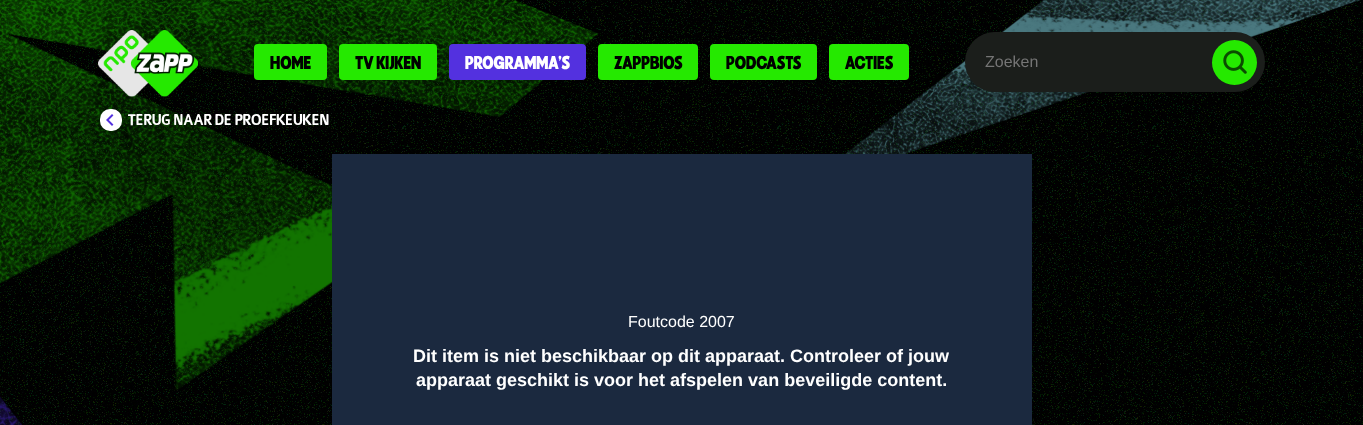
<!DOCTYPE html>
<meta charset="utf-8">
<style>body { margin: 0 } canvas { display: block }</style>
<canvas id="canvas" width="1363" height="425"></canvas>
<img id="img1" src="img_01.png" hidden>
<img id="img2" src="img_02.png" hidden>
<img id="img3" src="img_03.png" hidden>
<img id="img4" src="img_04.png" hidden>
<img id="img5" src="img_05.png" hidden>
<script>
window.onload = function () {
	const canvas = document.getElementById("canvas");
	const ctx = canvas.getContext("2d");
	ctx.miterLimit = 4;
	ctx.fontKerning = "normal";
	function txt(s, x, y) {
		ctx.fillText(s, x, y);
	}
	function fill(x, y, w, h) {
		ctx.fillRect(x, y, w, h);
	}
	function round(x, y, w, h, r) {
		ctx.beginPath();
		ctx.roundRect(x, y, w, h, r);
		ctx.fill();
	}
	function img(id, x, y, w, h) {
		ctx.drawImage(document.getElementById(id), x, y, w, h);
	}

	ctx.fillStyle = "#FFFFFF";
	fill(0, 0, 1363, 425);
	img("img1", 0, 0, 1363, 425);
	img("img2", 0, 0, 1360, 425);
	img("img3", 98, 30, 100, 67);
	ctx.fillStyle = "#25E900";
	round(254, 44, 73, 36, 4);
	round(339, 44, 98, 36, 4);
	ctx.fillStyle = "#5331DF";
	round(449, 44, 137, 36, 4);
	ctx.fillStyle = "#25E900";
	round(598, 44, 100, 36, 4);
	round(710, 44, 107, 36, 4);
	round(829, 44, 80, 36, 4);
	ctx.fillStyle = "#1B1E1B";
	round(965, 32, 300, 60, 30);
	ctx.fillStyle = "#25E900";
	ctx.beginPath();
	ctx.arc(1234.5, 62.5, 22.5, 0, Math.PI * 2);
	ctx.fill();
	img("img4", 1223, 50, 24, 24);
	ctx.fillStyle = "#FFFFFF";
	round(100, 109, 22, 22, 10);
	img("img5", 106, 114, 8, 12);
	ctx.fillStyle = "#1B293F";
	fill(332, 154, 700, 271);
	ctx.font = "18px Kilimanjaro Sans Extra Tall";
	ctx.fillStyle = "#000000";
	txt("HOME", 270, 69);
	txt("TV KIJKEN", 355, 69);
	ctx.fillStyle = "#FFFFFF";
	txt("PROGRAMMA'S", 465, 69);
	ctx.fillStyle = "#000000";
	txt("ZAPPBIOS", 614, 69);
	txt("PODCASTS", 726, 69);
	txt("ACTIES", 845, 69);
	ctx.font = "16px Liberation Sans";
	ctx.fillStyle = "#757575";
	txt("Zoeken", 985, 67);
	ctx.font = "15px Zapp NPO";
	ctx.fillStyle = "#FFFFFF";
	txt("TERUG NAAR DE PROEFKEUKEN", 128, 125);
	ctx.font = "16px Liberation Sans";
	txt("Foutcode 2007", 628, 327);
	ctx.font = "bold 18px Liberation Sans";
	txt("Dit item is niet beschikbaar op dit apparaat. Controleer of jouw", 413, 362);
	txt("apparaat geschikt is voor het afspelen van beveiligde content.", 416, 386);
};
</script>
